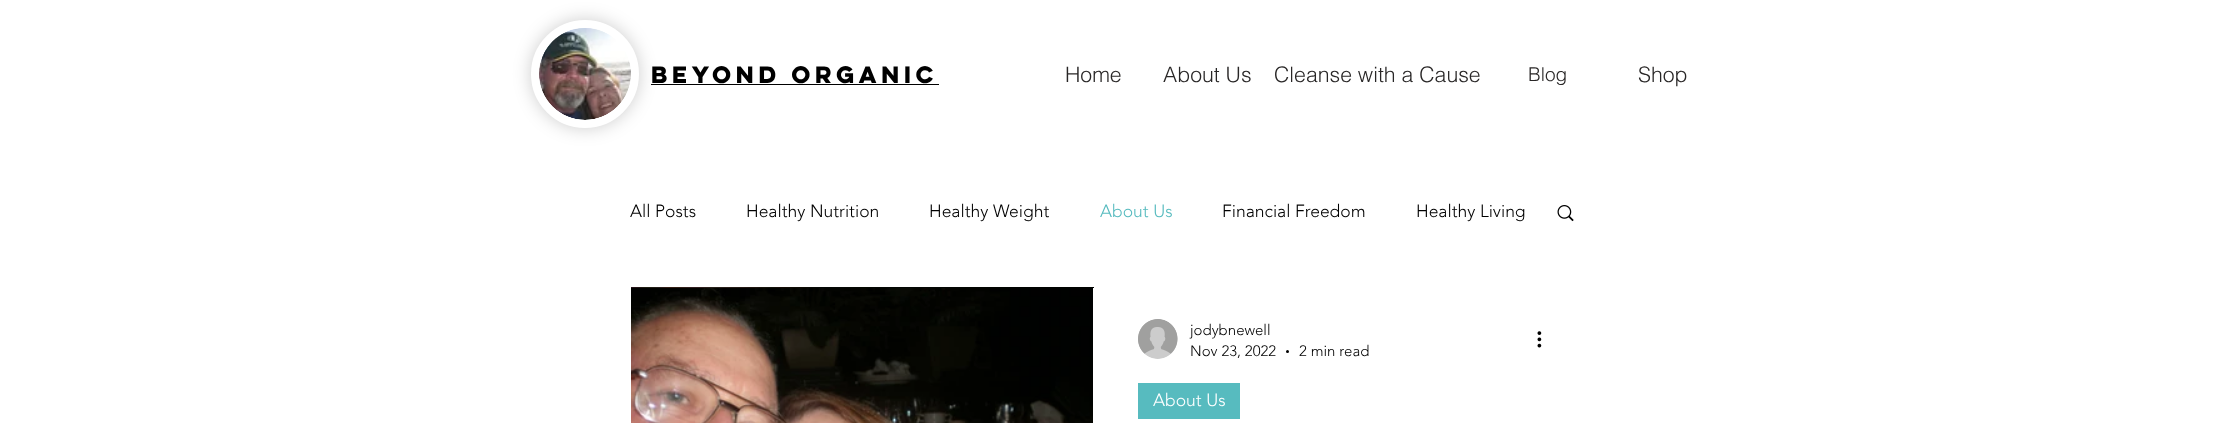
<!DOCTYPE html>
<meta charset="utf-8">
<style>body { margin: 0 } canvas { display: block }</style>
<canvas id="canvas" width="2227" height="423"></canvas>
<img id="img1" src="img_01.png" hidden>
<img id="img2" src="img_02.png" hidden>
<img id="img3" src="img_03.png" hidden>
<img id="img4" src="img_04.png" hidden>
<img id="img5" src="img_05.png" hidden>
<img id="img6" src="img_06.png" hidden>
<script>
window.onload = function () {
	const canvas = document.getElementById("canvas");
	const ctx = canvas.getContext("2d");
	ctx.miterLimit = 4;
	ctx.fontKerning = "normal";
	function txt(s, x, y) {
		ctx.fillText(s, x, y);
	}
	function fill(x, y, w, h) {
		ctx.fillRect(x, y, w, h);
	}
	function img(id, x, y, w, h) {
		ctx.drawImage(document.getElementById(id), x, y, w, h);
	}

	ctx.fillStyle = "#FFFFFF";
	fill(0, 0, 2227, 423);
	ctx.fillStyle = "rgba(0, 0, 0, 0.2)";
	ctx.filter = "blur(9px)";
	ctx.beginPath();
	ctx.roundRect(531, 20, 108, 108, 54);
	ctx.fill();
	ctx.filter = "none";
	ctx.fillStyle = "#FFFFFF";
	ctx.beginPath();
	ctx.arc(585, 74, 50, 0, Math.PI * 2);
	ctx.fill();
	ctx.strokeStyle = "#FFFFFF";
	ctx.lineWidth = 8;
	ctx.stroke();
	img("img1", 539, 28, 92, 92);
	ctx.fillStyle = "#000000";
	fill(651, 84, 288, 1);
	img("img2", 1557, 205, 17, 17);
	img("img3", 631, 287, 463, 1);
	img("img4", 631, 288, 462, 135);
	img("img5", 1138, 319, 40, 40);
	ctx.beginPath();
	ctx.arc(1287.5, 351.5, 1.5, 0, Math.PI * 2);
	ctx.fill();
	img("img6", 1537, 331, 5, 17);
	ctx.fillStyle = "#57BBBF";
	fill(1138, 383, 102, 36);
	ctx.font = "bold 21.25px 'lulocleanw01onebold'";
	ctx.fillStyle = "#000000";
	txt("Beyond Organic", 651, 83);
	ctx.font = "300 21.25px helvetica";
	ctx.fillStyle = "#282626";
	txt("Home", 1065, 82);
	txt("About Us", 1163, 82);
	txt("Cleanse with a Cause", 1274, 82);
	ctx.font = "300 19px helvetica";
	txt("Blog", 1528, 81);
	ctx.font = "300 21.25px helvetica";
	txt("Shop", 1638, 82);
	ctx.font = "300 17.5px 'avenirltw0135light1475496'";
	ctx.fillStyle = "#000000";
	txt("All Posts", 630, 217);
	txt("Healthy Nutrition", 746, 217);
	txt("Healthy Weight", 929, 217);
	ctx.fillStyle = "#57BBBF";
	txt("About Us", 1100, 217);
	ctx.fillStyle = "#000000";
	txt("Financial Freedom", 1222, 217);
	txt("Healthy Living", 1416, 217);
	ctx.font = "300 15px 'avenirltw0135light1475496'";
	txt("jodybnewell", 1190, 335);
	txt("Nov 23, 2022", 1190, 356);
	txt("2 min read", 1299, 356);
	ctx.font = "300 17.5px 'avenirltw0135light1475496'";
	ctx.fillStyle = "#FFFFFF";
	txt("About Us", 1153, 406);
};
</script>
